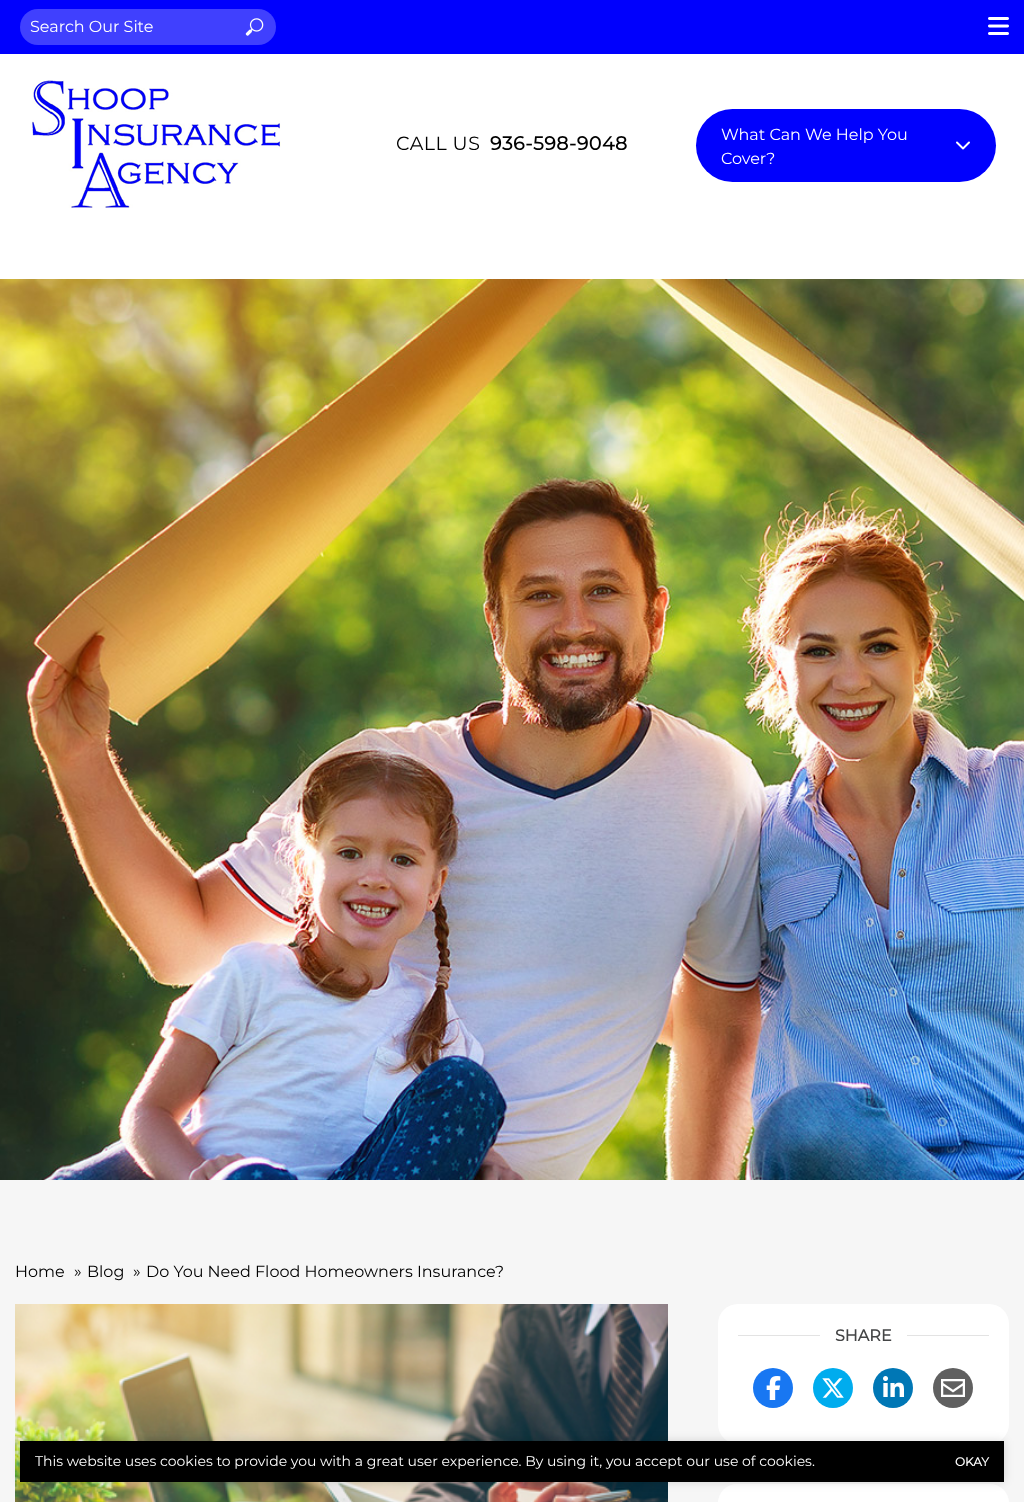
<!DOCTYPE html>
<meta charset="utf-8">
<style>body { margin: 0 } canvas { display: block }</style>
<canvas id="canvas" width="1024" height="1502"></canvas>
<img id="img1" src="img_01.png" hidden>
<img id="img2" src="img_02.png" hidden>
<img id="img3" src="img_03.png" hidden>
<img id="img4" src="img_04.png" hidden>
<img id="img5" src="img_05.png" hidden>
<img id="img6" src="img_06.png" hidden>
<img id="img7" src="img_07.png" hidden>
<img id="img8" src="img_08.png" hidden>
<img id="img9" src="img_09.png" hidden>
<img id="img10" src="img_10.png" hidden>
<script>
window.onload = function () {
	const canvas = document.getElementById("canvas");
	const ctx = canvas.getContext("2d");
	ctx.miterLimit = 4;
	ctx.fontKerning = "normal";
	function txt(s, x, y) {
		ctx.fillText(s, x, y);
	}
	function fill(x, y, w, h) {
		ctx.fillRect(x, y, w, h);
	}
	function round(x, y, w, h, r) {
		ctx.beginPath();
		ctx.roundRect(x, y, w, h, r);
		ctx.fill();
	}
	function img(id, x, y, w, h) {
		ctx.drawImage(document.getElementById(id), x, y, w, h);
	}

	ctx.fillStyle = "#FFFFFF";
	fill(0, 0, 1024, 1502);
	ctx.fillStyle = "#0000FD";
	fill(0, 0, 1024, 54);
	ctx.fillStyle = "#4040FE";
	round(20, 9, 256, 36, 18);
	img("img1", 245, 18, 19, 18);
	img("img2", 988, 17, 21, 18);
	img("img3", 32, 80, 249, 128);
	ctx.fillStyle = "#0000FD";
	round(696, 109, 300, 73, 36.5);
	img("img4", 956, 141, 14, 9);
	img("img5", 0, 279, 1024, 901);
	ctx.fillStyle = "#F6F6F6";
	fill(0, 1180, 1024, 322);
	img("img6", 15, 1304, 653, 198);
	ctx.fillStyle = "#FFFFFF";
	round(718, 1304, 291, 140, 20);
	ctx.fillStyle = "#E3E3E3";
	fill(738, 1335, 251, 1);
	ctx.fillStyle = "#FFFFFF";
	fill(820, 1335, 87, 1);
	ctx.fillStyle = "#1877F2";
	ctx.beginPath();
	ctx.arc(773, 1388, 20, 0, Math.PI * 2);
	ctx.fill();
	img("img7", 766, 1376, 15, 24);
	ctx.fillStyle = "#00ACEE";
	ctx.beginPath();
	ctx.arc(833, 1388, 20, 0, Math.PI * 2);
	ctx.fill();
	img("img8", 822, 1378, 22, 20);
	ctx.fillStyle = "#0077B5";
	ctx.beginPath();
	ctx.arc(893, 1388, 20, 0, Math.PI * 2);
	ctx.fill();
	img("img9", 883, 1376, 21, 21);
	ctx.fillStyle = "#606060";
	ctx.beginPath();
	ctx.arc(953, 1388, 20, 0, Math.PI * 2);
	ctx.fill();
	img("img10", 941, 1379, 24, 18);
	ctx.fillStyle = "#FFFFFF";
	round(718, 1484, 291, 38, 20);
	ctx.fillStyle = "rgba(0, 0, 0, 0.15)";
	ctx.filter = "blur(5px)";
	ctx.beginPath();
	ctx.rect(20, 1441, 984, 41);
	ctx.fill();
	ctx.filter = "none";
	ctx.fillStyle = "#000000";
	fill(20, 1441, 984, 41);
	ctx.font = "100 16px Montserrat";
	ctx.fillStyle = "#FFFFFF";
	txt("Search Our Site", 30, 32);
	ctx.letterSpacing = "0.5px";
	ctx.font = "100 19px Montserrat";
	ctx.fillStyle = "#000000";
	txt("CALL US", 396, 150);
	ctx.font = "bold 19px Montserrat";
	txt("936-598-9048", 490, 150);
	ctx.letterSpacing = "0px";
	ctx.font = "100 16px Montserrat";
	ctx.fillStyle = "#FFFFFF";
	txt("What Can We Help You", 721, 140);
	txt("Cover?", 721, 164);
	ctx.fillStyle = "#000000";
	txt("Home", 15, 1277);
	txt("»", 74, 1277);
	txt("Blog", 87, 1277);
	txt("»", 133, 1277);
	txt("Do You Need Flood Homeowners Insurance?", 146, 1277);
	ctx.font = "bold 16px Montserrat";
	ctx.fillStyle = "#444546";
	txt("SHARE", 835, 1341);
	ctx.font = "100 14px Montserrat";
	ctx.fillStyle = "#FFFFFF";
	txt("This website uses cookies to provide you with a great user experience. By using it, you accept our use of cookies.", 35, 1466);
	ctx.font = "bold 12px Montserrat";
	txt("OKAY", 955, 1466);
};
</script>
